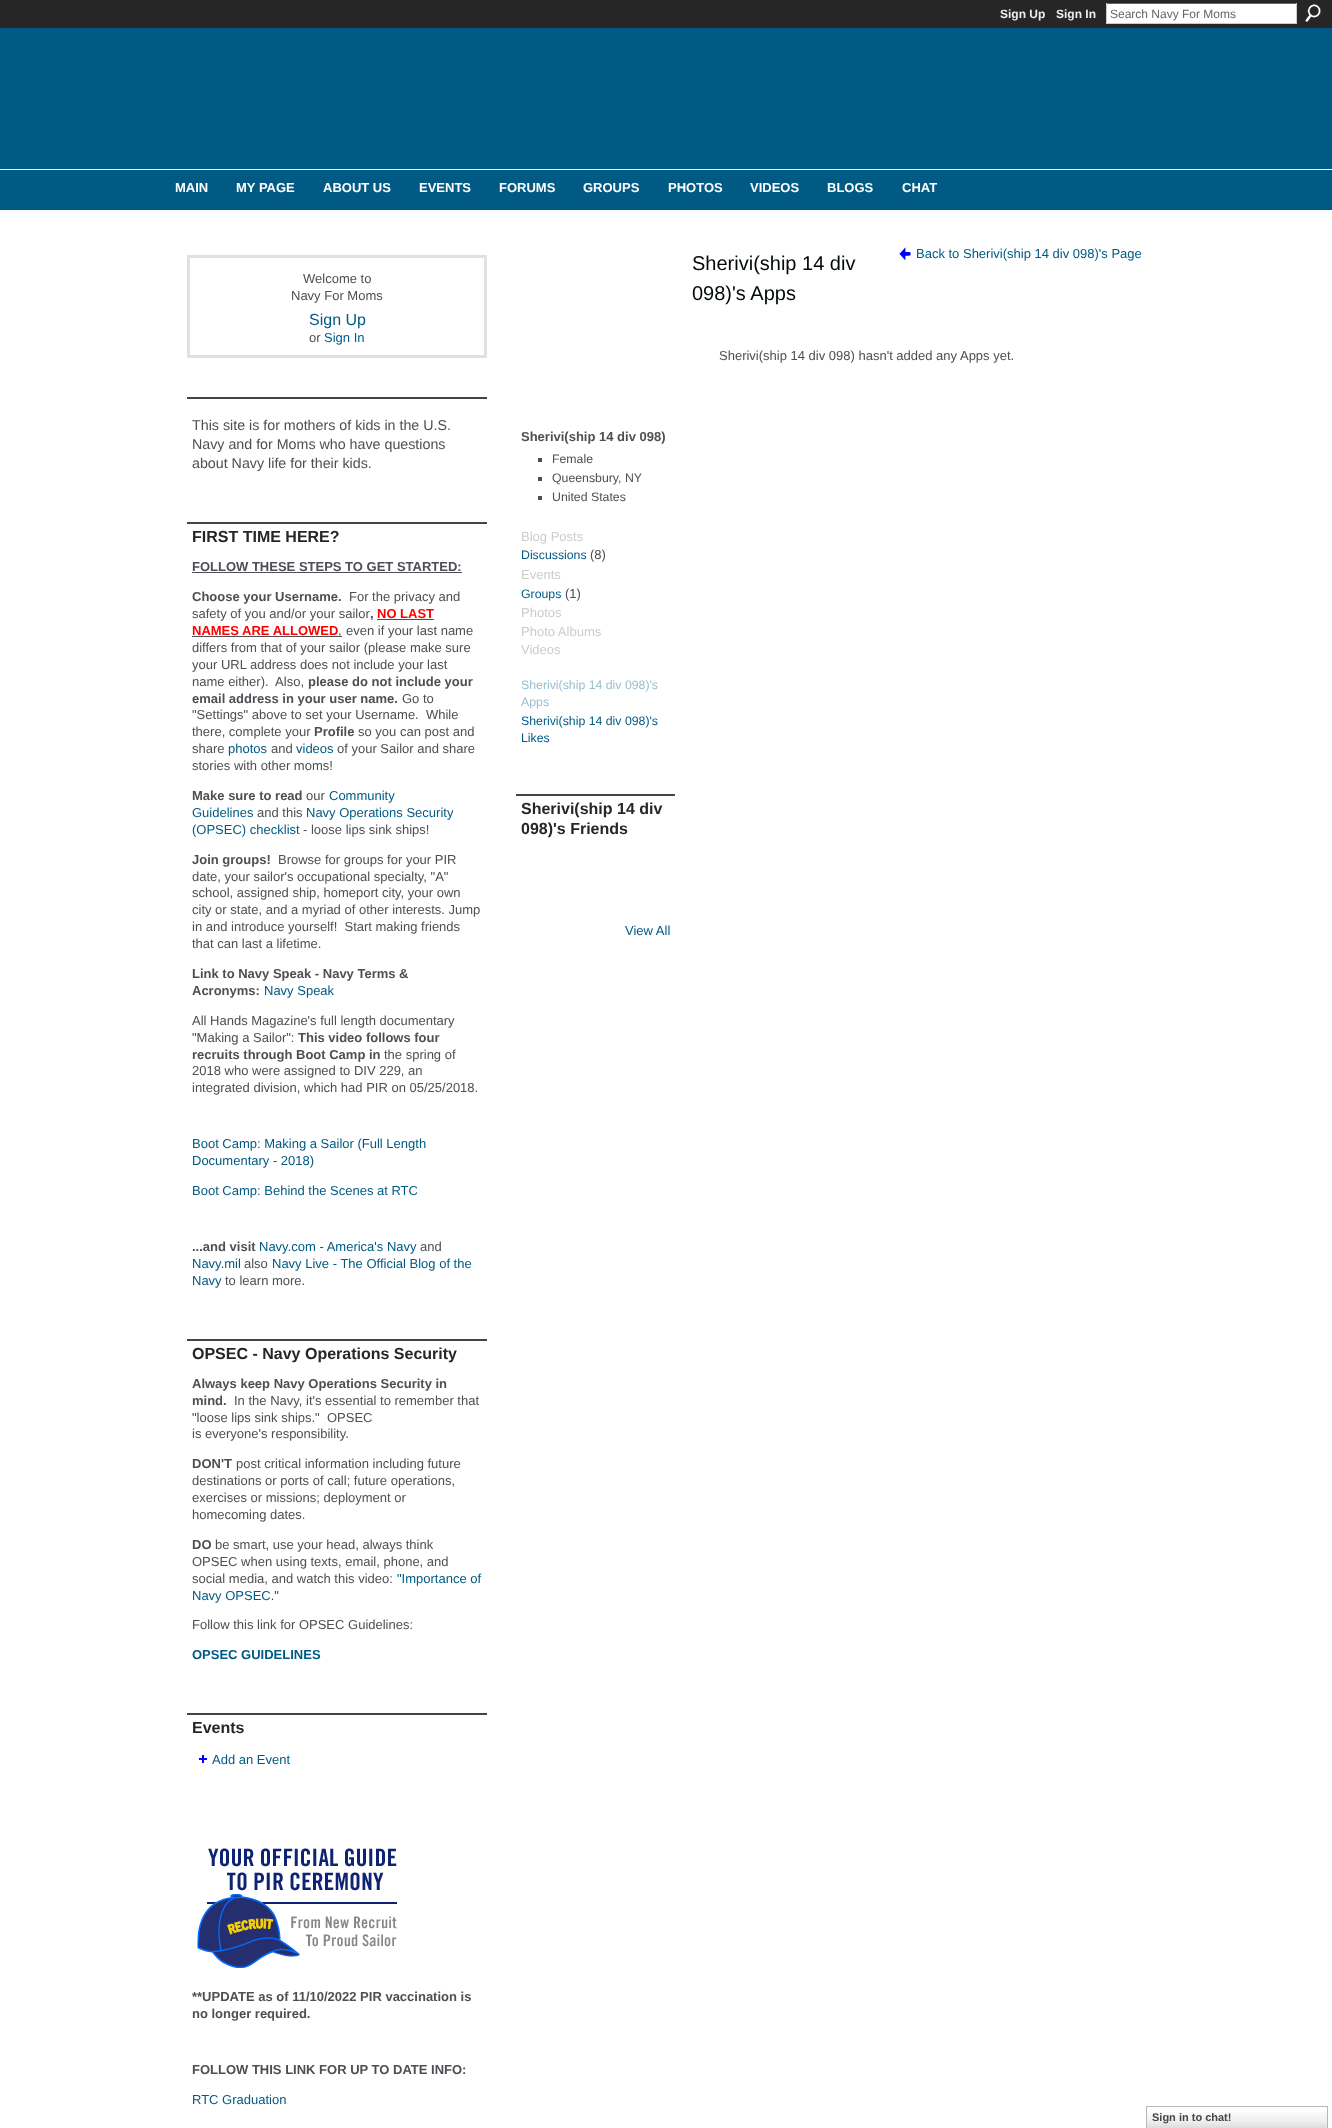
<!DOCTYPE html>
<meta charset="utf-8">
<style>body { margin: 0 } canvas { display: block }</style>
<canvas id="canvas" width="1332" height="2128"></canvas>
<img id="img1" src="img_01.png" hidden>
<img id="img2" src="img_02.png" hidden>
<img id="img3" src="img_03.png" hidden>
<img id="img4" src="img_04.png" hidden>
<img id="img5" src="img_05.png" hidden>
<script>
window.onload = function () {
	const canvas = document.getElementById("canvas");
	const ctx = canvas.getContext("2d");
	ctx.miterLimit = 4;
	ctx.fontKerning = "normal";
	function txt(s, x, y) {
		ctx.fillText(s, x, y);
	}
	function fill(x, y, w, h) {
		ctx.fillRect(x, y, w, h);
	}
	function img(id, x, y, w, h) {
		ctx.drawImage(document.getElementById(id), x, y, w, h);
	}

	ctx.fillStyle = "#FFFFFF";
	fill(0, 0, 1332, 2128);
	ctx.fillStyle = "#262626";
	fill(0, 0, 1332, 28);
	ctx.fillStyle = "#FFFFFF";
	fill(1107, 4, 189, 19);
	ctx.fillStyle = "#666666";
	fill(1106, 3, 191, 1);
	ctx.fillStyle = "#CCCCCC";
	fill(1296, 3, 1, 21);
	fill(1106, 23, 191, 1);
	fill(1106, 3, 1, 21);
	img("img1", 1305, 4, 16, 18);
	ctx.fillStyle = "#005A84";
	fill(0, 28, 1332, 182);
	ctx.fillStyle = "#FFFFFF";
	fill(0, 169, 1332, 1);
	ctx.strokeStyle = "#E1E1E1";
	ctx.lineWidth = 3;
	ctx.strokeRect(188.5, 256.5, 297, 100);
	ctx.fillStyle = "#444444";
	fill(187, 397, 300, 2);
	fill(187, 522, 300, 2);
	ctx.fillStyle = "#4E4E54";
	fill(192, 572, 270, 1);
	fill(377, 619, 57, 1);
	fill(192, 636, 150, 1);
	ctx.fillStyle = "#444444";
	fill(187, 1339, 300, 2);
	fill(187, 1713, 300, 2);
	img("img2", 199, 1755, 8, 8);
	img("img3", 197, 1848, 200, 121);
	img("img4", 899, 247, 12, 14);
	ctx.fillStyle = "#4E4E54";
	fill(538, 458, 4, 4);
	fill(538, 477, 4, 4);
	fill(538, 496, 4, 4);
	ctx.fillStyle = "#444444";
	fill(516, 794, 159, 2);
	img("img5", 1147, 2112, 180, 16);
	ctx.strokeStyle = "#B7B7B7";
	ctx.lineWidth = 1;
	ctx.strokeRect(1146.5, 2106.5, 181, 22);
	ctx.font = "bold 12px Liberation Sans";
	ctx.fillStyle = "#EEEEEE";
	txt("Sign Up", 1000, 18);
	txt("Sign In", 1056, 18);
	ctx.font = "12px Liberation Sans";
	ctx.fillStyle = "#666666";
	txt("Search Navy For Moms", 1110, 18);
	ctx.font = "bold 13px Liberation Sans";
	ctx.fillStyle = "#FFFFFF";
	txt("MAIN", 175, 192);
	txt("MY PAGE", 236, 192);
	txt("ABOUT US", 323, 192);
	txt("EVENTS", 419, 192);
	txt("FORUMS", 499, 192);
	txt("GROUPS", 583, 192);
	txt("PHOTOS", 668, 192);
	txt("VIDEOS", 750, 192);
	txt("BLOGS", 827, 192);
	txt("CHAT", 902, 192);
	ctx.font = "13px Liberation Sans";
	ctx.fillStyle = "#4E4E54";
	txt("Welcome to", 303, 283);
	txt("Navy For Moms", 291, 300);
	ctx.font = "16px Liberation Sans";
	ctx.fillStyle = "#005A84";
	txt("Sign Up", 309, 325);
	ctx.font = "13px Liberation Sans";
	ctx.fillStyle = "#4E4E54";
	txt("or", 309, 342);
	ctx.fillStyle = "#005A84";
	txt("Sign In", 324, 342);
	ctx.font = "14.25px Liberation Sans";
	ctx.fillStyle = "#4E4E54";
	txt("This site is for mothers of kids in the U.S.", 192, 430);
	txt("Navy and for Moms who have questions", 192, 449);
	txt("about Navy life for their kids.", 192, 468);
	ctx.font = "bold 16px Liberation Sans";
	ctx.fillStyle = "#262626";
	txt("FIRST TIME HERE?", 192, 542);
	ctx.font = "bold 13px Liberation Sans";
	ctx.fillStyle = "#4E4E54";
	txt("FOLLOW THESE STEPS TO GET STARTED:", 192, 571);
	txt("Choose your Username.", 192, 601);
	ctx.font = "13px Liberation Sans";
	txt("For the privacy and", 349, 601);
	txt("safety of you and/or your sailor", 192, 618);
	ctx.font = "bold 13px Liberation Sans";
	txt(",", 370, 618);
	ctx.fillStyle = "#FF0000";
	txt("NO LAST", 377, 618);
	txt("NAMES ARE ALLOWED", 192, 635);
	ctx.font = "13px Liberation Sans";
	txt(",", 338, 635);
	ctx.fillStyle = "#4E4E54";
	txt("even if your last name", 346, 635);
	txt("differs from that of your sailor (please make sure", 192, 652);
	txt("your URL address does not include your last", 192, 669);
	txt("name either).  Also,", 192, 686);
	ctx.font = "bold 13px Liberation Sans";
	txt("please do not include your", 308, 686);
	txt("email address in your user name.", 192, 703);
	ctx.font = "13px Liberation Sans";
	txt("Go to", 402, 703);
	txt("\"Settings\" above to set your Username.  While", 192, 719);
	txt("there, complete your", 192, 736);
	ctx.font = "bold 13px Liberation Sans";
	txt("Profile", 314, 736);
	ctx.font = "13px Liberation Sans";
	txt("so you can post and", 358, 736);
	txt("share", 192, 753);
	ctx.fillStyle = "#005A84";
	txt("photos", 228, 753);
	ctx.fillStyle = "#4E4E54";
	txt("and", 271, 753);
	ctx.fillStyle = "#005A84";
	txt("videos", 296, 753);
	ctx.fillStyle = "#4E4E54";
	txt("of your Sailor and share", 337, 753);
	txt("stories with other moms!", 192, 770);
	ctx.font = "bold 13px Liberation Sans";
	txt("Make sure to read", 192, 800);
	ctx.font = "13px Liberation Sans";
	txt("our", 306, 800);
	ctx.fillStyle = "#005A84";
	txt("Community", 329, 800);
	txt("Guidelines", 192, 817);
	ctx.fillStyle = "#4E4E54";
	txt("and this", 257, 817);
	ctx.fillStyle = "#005A84";
	txt("Navy Operations Security", 306, 817);
	txt("(OPSEC) checklist", 192, 834);
	ctx.fillStyle = "#4E4E54";
	txt("- loose lips sink ships!", 303, 834);
	ctx.font = "bold 13px Liberation Sans";
	txt("Join groups!", 192, 864);
	ctx.font = "13px Liberation Sans";
	txt("Browse for groups for your PIR", 278, 864);
	txt("date, your sailor's occupational specialty, \"A\"", 192, 881);
	txt("school, assigned ship, homeport city, your own", 192, 897);
	txt("city or state, and a myriad of other interests. Jump", 192, 914);
	txt("in and introduce yourself!  Start making friends", 192, 931);
	txt("that can last a lifetime.", 192, 948);
	ctx.font = "bold 13px Liberation Sans";
	txt("Link to Navy Speak - Navy Terms &", 192, 978);
	txt("Acronyms:", 192, 995);
	ctx.font = "13px Liberation Sans";
	ctx.fillStyle = "#005A84";
	txt("Navy Speak", 264, 995);
	ctx.fillStyle = "#4E4E54";
	txt("All Hands Magazine's full length documentary", 192, 1025);
	txt("\"Making a Sailor\":", 192, 1042);
	ctx.font = "bold 13px Liberation Sans";
	txt("This video follows four", 298, 1042);
	txt("recruits through Boot Camp in", 192, 1059);
	ctx.font = "13px Liberation Sans";
	txt("the spring of", 384, 1059);
	txt("2018 who were assigned to DIV 229, an", 192, 1075);
	txt("integrated division, which had PIR on 05/25/2018.", 192, 1092);
	ctx.fillStyle = "#005A84";
	txt("Boot Camp: Making a Sailor (Full Length", 192, 1148);
	txt("Documentary - 2018)", 192, 1165);
	txt("Boot Camp: Behind the Scenes at RTC", 192, 1195);
	ctx.font = "bold 13px Liberation Sans";
	ctx.fillStyle = "#4E4E54";
	txt("...and visit", 192, 1251);
	ctx.font = "13px Liberation Sans";
	ctx.fillStyle = "#005A84";
	txt("Navy.com - America's Navy", 259, 1251);
	ctx.fillStyle = "#4E4E54";
	txt("and", 420, 1251);
	ctx.fillStyle = "#005A84";
	txt("Navy.mil", 192, 1268);
	ctx.fillStyle = "#4E4E54";
	txt("also", 244, 1268);
	ctx.fillStyle = "#005A84";
	txt("Navy Live - The Official Blog of the", 272, 1268);
	txt("Navy", 192, 1285);
	ctx.fillStyle = "#4E4E54";
	txt("to learn more.", 225, 1285);
	ctx.font = "bold 16px Liberation Sans";
	ctx.fillStyle = "#262626";
	txt("OPSEC - Navy Operations Security", 192, 1359);
	ctx.font = "bold 13px Liberation Sans";
	ctx.fillStyle = "#4E4E54";
	txt("Always keep Navy Operations Security in", 192, 1388);
	txt("mind.", 192, 1405);
	ctx.font = "13px Liberation Sans";
	txt("In the Navy, it's essential to remember that", 234, 1405);
	txt("\"loose lips sink ships.\"  OPSEC", 192, 1422);
	txt("is everyone's responsibility.", 192, 1438);
	ctx.font = "bold 13px Liberation Sans";
	txt("DON'T", 192, 1468);
	ctx.font = "13px Liberation Sans";
	txt("post critical information including future", 236, 1468);
	txt("destinations or ports of call; future operations,", 192, 1485);
	txt("exercises or missions; deployment or", 192, 1502);
	txt("homecoming dates.", 192, 1519);
	ctx.font = "bold 13px Liberation Sans";
	txt("DO", 192, 1549);
	ctx.font = "13px Liberation Sans";
	txt("be smart, use your head, always think", 215, 1549);
	txt("OPSEC when using texts, email, phone, and", 192, 1566);
	txt("social media, and watch this video:", 192, 1583);
	ctx.fillStyle = "#005A84";
	txt("\"Importance of", 397, 1583);
	txt("Navy OPSEC.\"", 192, 1600);
	ctx.fillStyle = "#4E4E54";
	txt("Follow this link for OPSEC Guidelines:", 192, 1629);
	ctx.font = "bold 13px Liberation Sans";
	ctx.fillStyle = "#005A84";
	txt("OPSEC GUIDELINES", 192, 1659);
	ctx.font = "bold 16px Liberation Sans";
	ctx.fillStyle = "#262626";
	txt("Events", 192, 1733);
	ctx.font = "13px Liberation Sans";
	ctx.fillStyle = "#005A84";
	txt("Add an Event", 212, 1764);
	ctx.font = "bold 13px Liberation Sans";
	ctx.fillStyle = "#4E4E54";
	txt("**UPDATE as of 11/10/2022 PIR vaccination is", 192, 2001);
	txt("no longer required.", 192, 2018);
	txt("FOLLOW THIS LINK FOR UP TO DATE INFO:", 192, 2074);
	ctx.font = "13px Liberation Sans";
	ctx.fillStyle = "#005A84";
	txt("RTC Graduation", 192, 2104);
	ctx.font = "20px Liberation Sans";
	ctx.fillStyle = "#03090A";
	txt("Sherivi(ship 14 div", 692, 270);
	txt("098)'s Apps", 692, 300);
	ctx.font = "13px Liberation Sans";
	ctx.fillStyle = "#005A84";
	txt("Back to Sherivi(ship 14 div 098)'s Page", 916, 258);
	ctx.fillStyle = "#4E4E54";
	txt("Sherivi(ship 14 div 098) hasn't added any Apps yet.", 719, 360);
	ctx.font = "bold 13px Liberation Sans";
	txt("Sherivi(ship 14 div 098)", 521, 441);
	ctx.font = "12.3px Liberation Sans";
	txt("Female", 552, 463);
	txt("Queensbury, NY", 552, 482);
	txt("United States", 552, 501);
	ctx.font = "13px Liberation Sans";
	ctx.fillStyle = "#CCCCCC";
	txt("Blog Posts", 521, 541);
	ctx.font = "12.3px Liberation Sans";
	ctx.fillStyle = "#005A84";
	txt("Discussions", 521, 559);
	ctx.font = "13px Liberation Sans";
	ctx.fillStyle = "#4E4E54";
	txt("(8)", 590, 559);
	ctx.fillStyle = "#CCCCCC";
	txt("Events", 521, 579);
	ctx.font = "12.3px Liberation Sans";
	ctx.fillStyle = "#005A84";
	txt("Groups", 521, 598);
	ctx.font = "13px Liberation Sans";
	ctx.fillStyle = "#4E4E54";
	txt("(1)", 565, 598);
	ctx.fillStyle = "#CCCCCC";
	txt("Photos", 521, 617);
	txt("Photo Albums", 521, 636);
	txt("Videos", 521, 654);
	ctx.font = "12.3px Liberation Sans";
	ctx.fillStyle = "#99BDCE";
	txt("Sherivi(ship 14 div 098)'s", 521, 689);
	txt("Apps", 521, 706);
	ctx.fillStyle = "#005A84";
	txt("Sherivi(ship 14 div 098)'s", 521, 725);
	txt("Likes", 521, 742);
	ctx.font = "bold 16px Liberation Sans";
	ctx.fillStyle = "#262626";
	txt("Sherivi(ship 14 div", 521, 814);
	txt("098)'s Friends", 521, 834);
	ctx.font = "13px Liberation Sans";
	ctx.fillStyle = "#005A84";
	txt("View All", 625, 935);
	ctx.font = "bold 11px Liberation Sans";
	ctx.fillStyle = "#454545";
	txt("Sign in to chat!", 1152, 2121);
};
</script>
